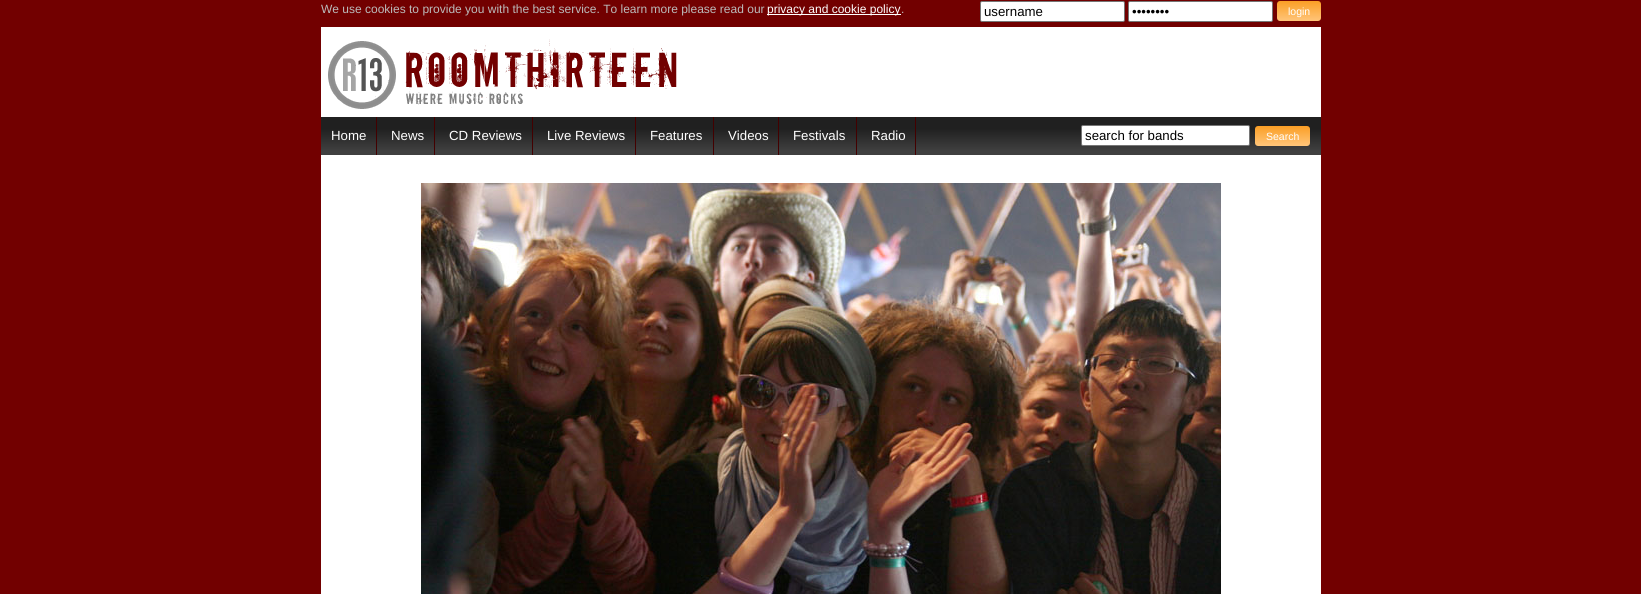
#include <cairo.h>
#include <math.h>
#include <stddef.h>


static void rgb(cairo_t *cr, int r, int g, int b)
{
	cairo_set_source_rgb(cr, r / 255.0, g / 255.0, b / 255.0);
}

static void face(cairo_t *cr, const char *family, double size, int italic, int bold)
{
	cairo_select_font_face(cr, family, italic ? CAIRO_FONT_SLANT_ITALIC : CAIRO_FONT_SLANT_NORMAL,
		bold ? CAIRO_FONT_WEIGHT_BOLD : CAIRO_FONT_WEIGHT_NORMAL);
	cairo_set_font_size(cr, size);
}

static void label(cairo_t *cr, double x, double y, const char *s)
{
	cairo_move_to(cr, x, y);
	cairo_show_text(cr, s);
}

static void rect(cairo_t *cr, double x, double y, double w, double h)
{
	cairo_rectangle(cr, x, y, w, h);
	cairo_fill(cr);
}

static void rrect(cairo_t *cr, double x, double y, double w, double h, double r)
{
	cairo_new_sub_path(cr);
	cairo_arc(cr, x + w - r, y + h - r, r, 0, M_PI / 2);
	cairo_arc(cr, x + r, y + h - r, r, M_PI / 2, M_PI);
	cairo_arc(cr, x + r, y + r, r, M_PI, 1.5 * M_PI);
	cairo_arc(cr, x + w - r, y + r, r, 1.5 * M_PI, 2 * M_PI);
	cairo_close_path(cr);
}

static void image(cairo_t *cr, const char *path, double x, double y, double w, double h)
{
	cairo_surface_t *image = cairo_image_surface_create_from_png(path);
	cairo_save(cr);
	cairo_set_source_surface(cr, image, x, y);
	cairo_rectangle(cr, x, y, w, h);
	cairo_fill(cr);
	cairo_restore(cr);
	cairo_surface_destroy(image);
}

static void draw(cairo_t *cr) {
	cairo_pattern_t *gradient;
	rgb(cr, 114, 0, 0);
	cairo_paint(cr);
	rgb(cr, 255, 255, 255);
	rect(cr, 321, 27, 1000, 90);
	face(cr, "Liberation Sans", 12, 0, 0);
	rgb(cr, 187, 187, 187);
	label(cr, 321, 13, "We use cookies to provide you with the best service. To learn more please read our");
	rgb(cr, 255, 255, 255);
	rect(cr, 767, 14, 134, 1);
	label(cr, 767, 13, "privacy and cookie policy");
	rgb(cr, 187, 187, 187);
	label(cr, 901, 13, ".");
	rgb(cr, 255, 255, 255);
	rrect(cr, 980.5, 1.5, 144, 20, 1.5);
	cairo_fill_preserve(cr);
	rgb(cr, 118, 118, 118);
	cairo_set_line_width(cr, 1);
	cairo_stroke(cr);
	face(cr, "Liberation Sans", 13.25, 0, 0);
	rgb(cr, 0, 0, 0);
	label(cr, 984, 16, "username");
	rgb(cr, 255, 255, 255);
	rrect(cr, 1128.5, 1.5, 144, 20, 1.5);
	cairo_fill_preserve(cr);
	rgb(cr, 118, 118, 118);
	cairo_stroke(cr);
	rgb(cr, 0, 0, 0);
	label(cr, 1132, 16, "••••••••");
	gradient = cairo_pattern_create_linear(1277, 21, 1277, 1);
	cairo_pattern_add_color_stop_rgba(gradient, 0, 1, 0.769, 0.467, 1);
	cairo_pattern_add_color_stop_rgba(gradient, 0.03, 1, 0.769, 0.467, 1);
	cairo_pattern_add_color_stop_rgba(gradient, 1, 0.984, 0.62, 0.145, 1);
	cairo_set_source(cr, gradient);
	cairo_pattern_destroy(gradient);
	rrect(cr, 1277, 1, 44, 20, 3);
	cairo_fill(cr);
	face(cr, "Liberation Sans", 10.5, 0, 0);
	rgb(cr, 255, 255, 255);
	label(cr, 1288, 15, "login");
	image(cr, "image0.png", 328, 39, 349, 70);
	gradient = cairo_pattern_create_linear(821, 117, 821, 155);
	cairo_pattern_add_color_stop_rgba(gradient, 0.3, 0.125, 0.125, 0.125, 1);
	cairo_pattern_add_color_stop_rgba(gradient, 0.9, 0.251, 0.251, 0.251, 1);
	cairo_set_source(cr, gradient);
	cairo_pattern_destroy(gradient);
	rect(cr, 321, 117, 1000, 38);
	rgb(cr, 68, 0, 0);
	rect(cr, 376, 117, 1, 38);
	face(cr, "Liberation Sans", 13.25, 0, 0);
	rgb(cr, 255, 255, 255);
	label(cr, 331, 140, "Home");
	rgb(cr, 68, 0, 0);
	rect(cr, 434, 117, 1, 38);
	rgb(cr, 255, 255, 255);
	label(cr, 391, 140, "News");
	rgb(cr, 68, 0, 0);
	rect(cr, 532, 117, 1, 38);
	rgb(cr, 255, 255, 255);
	label(cr, 449, 140, "CD Reviews");
	rgb(cr, 68, 0, 0);
	rect(cr, 635, 117, 1, 38);
	rgb(cr, 255, 255, 255);
	label(cr, 547, 140, "Live Reviews");
	rgb(cr, 68, 0, 0);
	rect(cr, 713, 117, 1, 38);
	rgb(cr, 255, 255, 255);
	label(cr, 650, 140, "Features");
	rgb(cr, 68, 0, 0);
	rect(cr, 778, 117, 1, 38);
	rgb(cr, 255, 255, 255);
	label(cr, 728, 140, "Videos");
	rgb(cr, 68, 0, 0);
	rect(cr, 856, 117, 1, 38);
	rgb(cr, 255, 255, 255);
	label(cr, 793, 140, "Festivals");
	rgb(cr, 68, 0, 0);
	rect(cr, 915, 117, 1, 38);
	rgb(cr, 255, 255, 255);
	label(cr, 871, 140, "Radio");
	rrect(cr, 1081.5, 125.5, 168, 20, 1.5);
	cairo_fill_preserve(cr);
	rgb(cr, 118, 118, 118);
	cairo_stroke(cr);
	rgb(cr, 0, 0, 0);
	label(cr, 1085, 140, "search for bands");
	gradient = cairo_pattern_create_linear(1255, 146, 1255, 126);
	cairo_pattern_add_color_stop_rgba(gradient, 0, 1, 0.769, 0.467, 1);
	cairo_pattern_add_color_stop_rgba(gradient, 0.03, 1, 0.769, 0.467, 1);
	cairo_pattern_add_color_stop_rgba(gradient, 1, 0.984, 0.62, 0.145, 1);
	cairo_set_source(cr, gradient);
	cairo_pattern_destroy(gradient);
	rrect(cr, 1255, 126, 55, 20, 3);
	cairo_fill(cr);
	face(cr, "Liberation Sans", 10.5, 0, 0);
	rgb(cr, 255, 255, 255);
	label(cr, 1266, 140, "Search");
	rect(cr, 321, 155, 1000, 439);
	image(cr, "image1.png", 421, 183, 800, 411);
}

int main(void) {
	cairo_surface_t *surface = cairo_image_surface_create(CAIRO_FORMAT_RGB24, 1641, 594);
	cairo_t *cr = cairo_create(surface);
	cairo_font_options_t *options = cairo_font_options_create();
	cairo_font_options_set_hint_metrics(options, CAIRO_HINT_METRICS_OFF);
	cairo_font_options_set_hint_style(options, CAIRO_HINT_STYLE_NONE);
	cairo_set_font_options(cr, options);
	cairo_set_miter_limit(cr, 4);
	draw(cr);
	cairo_surface_write_to_png(surface, "render.png");
	cairo_font_options_destroy(options);
	cairo_destroy(cr);
	cairo_surface_destroy(surface);
	return 0;
}
